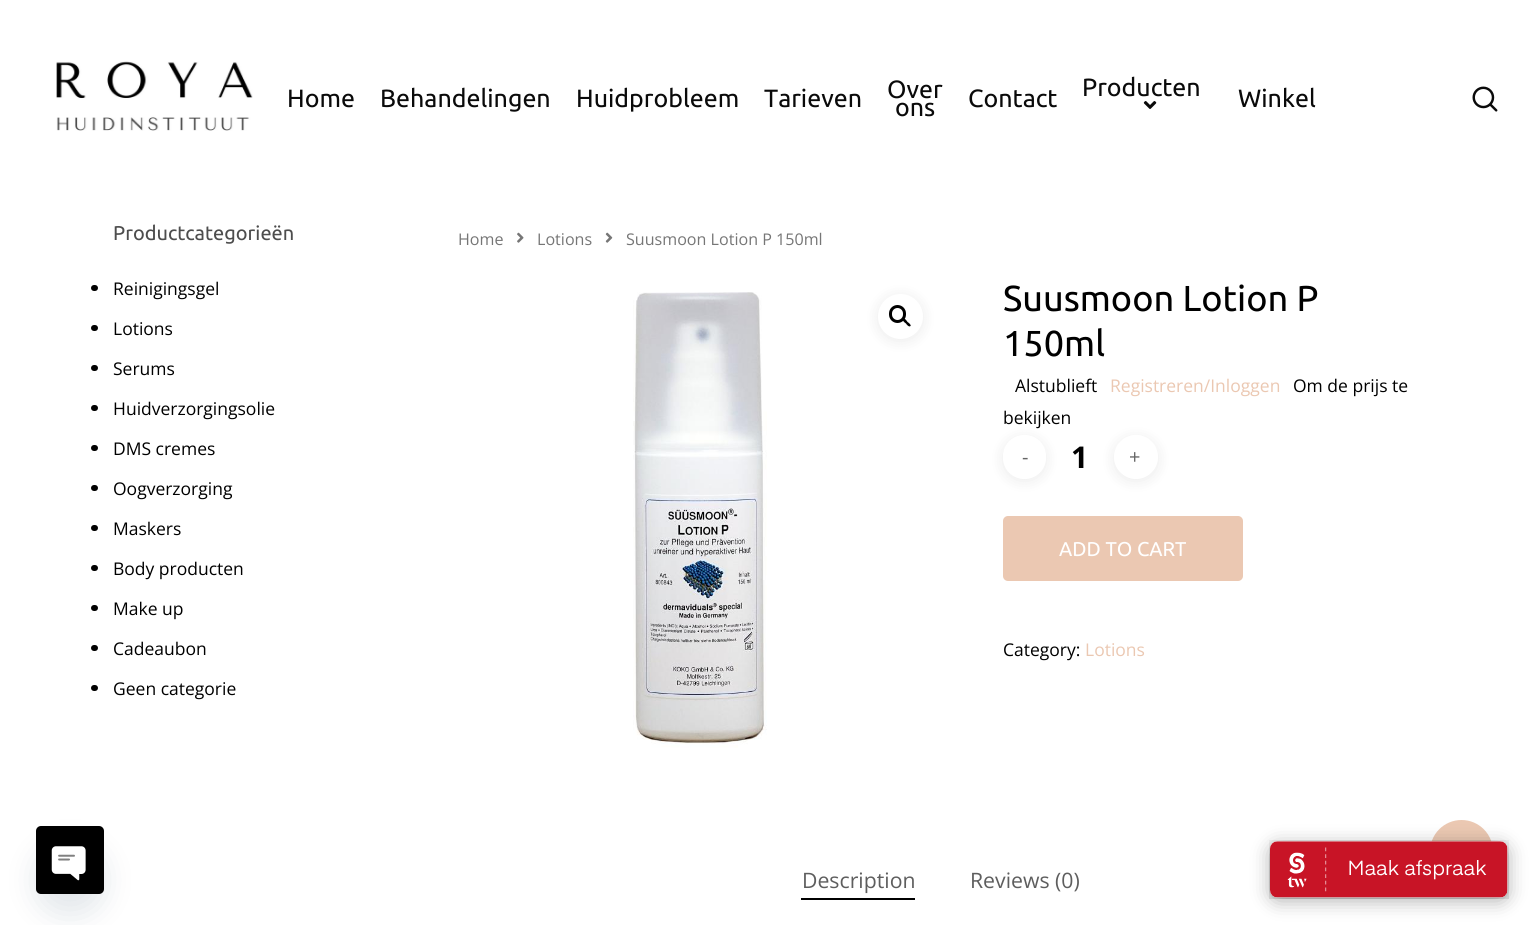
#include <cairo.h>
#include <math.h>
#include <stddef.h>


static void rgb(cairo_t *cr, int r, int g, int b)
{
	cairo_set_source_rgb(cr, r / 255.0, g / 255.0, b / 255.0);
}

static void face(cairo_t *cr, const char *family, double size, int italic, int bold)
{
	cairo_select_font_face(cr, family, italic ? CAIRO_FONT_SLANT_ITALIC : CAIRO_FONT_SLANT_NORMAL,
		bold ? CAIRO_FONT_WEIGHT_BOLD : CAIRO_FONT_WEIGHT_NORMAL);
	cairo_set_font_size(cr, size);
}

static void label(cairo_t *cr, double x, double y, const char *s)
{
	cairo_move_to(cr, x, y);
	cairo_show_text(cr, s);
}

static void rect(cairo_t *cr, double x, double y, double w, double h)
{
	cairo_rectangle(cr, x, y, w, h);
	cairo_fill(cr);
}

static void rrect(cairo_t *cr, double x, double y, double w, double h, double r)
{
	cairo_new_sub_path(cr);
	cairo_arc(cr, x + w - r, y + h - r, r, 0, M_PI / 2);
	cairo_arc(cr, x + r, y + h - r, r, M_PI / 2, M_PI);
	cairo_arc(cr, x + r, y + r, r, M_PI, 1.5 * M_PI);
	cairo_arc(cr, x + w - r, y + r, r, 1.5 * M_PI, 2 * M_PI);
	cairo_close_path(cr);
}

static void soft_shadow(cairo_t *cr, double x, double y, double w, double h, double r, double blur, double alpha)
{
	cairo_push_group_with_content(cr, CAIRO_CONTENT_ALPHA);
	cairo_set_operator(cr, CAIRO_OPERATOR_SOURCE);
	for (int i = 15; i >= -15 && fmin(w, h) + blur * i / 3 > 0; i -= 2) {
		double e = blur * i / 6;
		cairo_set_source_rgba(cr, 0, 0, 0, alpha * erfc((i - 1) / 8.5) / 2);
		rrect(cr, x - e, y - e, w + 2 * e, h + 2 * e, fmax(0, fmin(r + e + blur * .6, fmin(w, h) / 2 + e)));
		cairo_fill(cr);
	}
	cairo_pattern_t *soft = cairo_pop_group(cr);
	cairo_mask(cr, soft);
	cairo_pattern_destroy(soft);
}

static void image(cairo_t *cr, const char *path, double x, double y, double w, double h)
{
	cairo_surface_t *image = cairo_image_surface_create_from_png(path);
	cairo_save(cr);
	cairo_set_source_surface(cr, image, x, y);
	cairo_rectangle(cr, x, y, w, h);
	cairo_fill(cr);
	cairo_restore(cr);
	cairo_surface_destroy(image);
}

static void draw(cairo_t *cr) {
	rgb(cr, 255, 255, 255);
	cairo_paint(cr);
	rgb(cr, 73, 104, 126);
	soft_shadow(cr, 36, 846, 68, 68, 34, 15, 0.16);
	rgb(cr, 0, 0, 0);
	rrect(cr, 36, 826, 68, 68, 5);
	cairo_fill(cr);
	image(cr, "image0.png", 51, 846, 35, 35);
	image(cr, "image1.png", 56, 61, 197, 70);
	face(cr, "Ubuntu", 25, 0, 0);
	rgb(cr, 10, 10, 10);
	label(cr, 287, 107, "Home");
	label(cr, 380, 107, "Behandelingen");
	label(cr, 576, 107, "Huidprobleem");
	label(cr, 764, 107, "Tarieven");
	label(cr, 887, 98, "Over");
	label(cr, 895, 116, "ons");
	label(cr, 968, 107, "Contact");
	label(cr, 1082, 96, "Producten");
	image(cr, "image2.png", 1143, 101, 14, 8);
	label(cr, 1238, 107, "Winkel");
	image(cr, "image3.png", 1472, 86, 26, 26);
	face(cr, "Ubuntu", 20, 0, 0);
	rgb(cr, 77, 77, 77);
	label(cr, 113, 240, "Productcategorieën");
	rgb(cr, 0, 0, 0);
	rrect(cr, 91, 285, 7, 6, 3);
	cairo_fill(cr);
	face(cr, "Open Sans", 17.5, 0, 0);
	label(cr, 113, 295, "Reinigingsgel");
	rrect(cr, 91, 325, 7, 6, 3);
	cairo_fill(cr);
	label(cr, 113, 335, "Lotions");
	rrect(cr, 91, 365, 7, 6, 3);
	cairo_fill(cr);
	label(cr, 113, 375, "Serums");
	rrect(cr, 91, 405, 7, 6, 3);
	cairo_fill(cr);
	label(cr, 113, 415, "Huidverzorgingsolie");
	rrect(cr, 91, 445, 7, 6, 3);
	cairo_fill(cr);
	label(cr, 113, 455, "DMS cremes");
	rrect(cr, 91, 485, 7, 6, 3);
	cairo_fill(cr);
	label(cr, 113, 495, "Oogverzorging");
	rrect(cr, 91, 525, 7, 6, 3);
	cairo_fill(cr);
	label(cr, 113, 535, "Maskers");
	rrect(cr, 91, 565, 7, 6, 3);
	cairo_fill(cr);
	label(cr, 113, 575, "Body producten");
	rrect(cr, 91, 605, 7, 6, 3);
	cairo_fill(cr);
	label(cr, 113, 615, "Make up");
	rrect(cr, 91, 645, 7, 6, 3);
	cairo_fill(cr);
	label(cr, 113, 655, "Cadeaubon");
	rrect(cr, 91, 685, 7, 6, 3);
	cairo_fill(cr);
	label(cr, 113, 695, "Geen categorie");
	face(cr, "Open Sans", 16.1, 0, 0);
	rgb(cr, 118, 118, 118);
	label(cr, 458, 245, "Home");
	image(cr, "image4.png", 517, 232, 7, 11);
	label(cr, 537, 245, "Lotions");
	image(cr, "image5.png", 605, 232, 8, 11);
	label(cr, 626, 245, "Suusmoon Lotion P 150ml");
	image(cr, "image6.png", 633, 292, 134, 456);
	rgb(cr, 0, 0, 0);
	soft_shadow(cr, 878, 296, 45, 45, 22.5, 7.5, 0.08);
	rgb(cr, 255, 255, 255);
	cairo_arc(cr, 900.5, 316.5, 22.5, 0, 2 * M_PI);
	cairo_fill(cr);
	rrect(cr, 890.5, 306.5, 14, 15, 7);
	rgb(cr, 0, 0, 0);
	cairo_set_line_width(cr, 3);
	cairo_stroke(cr);
	cairo_new_path(cr);
	cairo_move_to(cr, 903, 319);
	cairo_curve_to(cr, 904.5, 317.5, 907, 321, 907.5, 322);
	cairo_curve_to(cr, 908.5, 322.5, 911.5, 325, 910.5, 326);
	cairo_curve_to(cr, 909, 327.5, 906.5, 324.5, 906, 323.5);
	cairo_curve_to(cr, 905, 323, 902, 320.5, 903, 319);
	cairo_close_path(cr);
	cairo_fill(cr);
	face(cr, "Ubuntu", 36.1, 0, 0);
	label(cr, 1003, 311, "Suusmoon Lotion P");
	label(cr, 1003, 356, "150ml");
	face(cr, "Open Sans", 17.5, 0, 0);
	label(cr, 1015, 392, "Alstublieft");
	rgb(cr, 235, 200, 178);
	label(cr, 1110, 392, "Registreren/Inloggen");
	rgb(cr, 0, 0, 0);
	label(cr, 1293, 392, "Om de prijs te");
	label(cr, 1003, 424, "bekijken");
	cairo_save(cr);
	cairo_set_fill_rule(cr, CAIRO_FILL_RULE_EVEN_ODD);
	cairo_new_path(cr);
	cairo_move_to(cr, 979, 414);
	cairo_line_to(cr, 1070, 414);
	cairo_line_to(cr, 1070, 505);
	cairo_line_to(cr, 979, 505);
	cairo_close_path(cr);
	cairo_move_to(cr, 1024.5, 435);
	cairo_curve_to(cr, 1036.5, 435, 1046, 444.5, 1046, 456.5);
	cairo_line_to(cr, 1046, 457.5);
	cairo_curve_to(cr, 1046, 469.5, 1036.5, 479, 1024.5, 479);
	cairo_curve_to(cr, 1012.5, 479, 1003, 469.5, 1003, 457.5);
	cairo_line_to(cr, 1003, 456.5);
	cairo_curve_to(cr, 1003, 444.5, 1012.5, 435, 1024.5, 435);
	cairo_close_path(cr);
	cairo_clip(cr);
	rgb(cr, 0, 0, 0);
	soft_shadow(cr, 1003, 438, 43, 43, 21.5, 7.5, 0.08);
	cairo_restore(cr);
	face(cr, "Open Sans", 20, 0, 0);
	rgb(cr, 102, 102, 102);
	label(cr, 1022, 464, "-");
	face(cr, "Open Sans", 30, 0, 1);
	rgb(cr, 0, 0, 0);
	label(cr, 1071, 468, "1");
	cairo_save(cr);
	cairo_set_fill_rule(cr, CAIRO_FILL_RULE_EVEN_ODD);
	cairo_new_path(cr);
	cairo_move_to(cr, 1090, 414);
	cairo_line_to(cr, 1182, 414);
	cairo_line_to(cr, 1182, 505);
	cairo_line_to(cr, 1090, 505);
	cairo_close_path(cr);
	cairo_move_to(cr, 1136, 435);
	cairo_curve_to(cr, 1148, 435, 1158, 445, 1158, 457);
	cairo_curve_to(cr, 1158, 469, 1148, 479, 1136, 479);
	cairo_curve_to(cr, 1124, 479, 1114, 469, 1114, 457);
	cairo_curve_to(cr, 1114, 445, 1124, 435, 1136, 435);
	cairo_close_path(cr);
	cairo_clip(cr);
	rgb(cr, 0, 0, 0);
	soft_shadow(cr, 1114, 438, 44, 43, 21.5, 7.5, 0.08);
	cairo_restore(cr);
	face(cr, "Open Sans", 20, 0, 0);
	rgb(cr, 102, 102, 102);
	label(cr, 1129, 464, "+");
	rgb(cr, 235, 200, 178);
	rrect(cr, 1003, 516, 240, 65, 5);
	cairo_fill(cr);
	face(cr, "Ubuntu", 20, 0, 0);
	rgb(cr, 255, 255, 255);
	label(cr, 1059, 556, "ADD TO CART");
	face(cr, "Open Sans", 17.5, 0, 0);
	rgb(cr, 0, 0, 0);
	label(cr, 1003, 656, "Category:");
	rgb(cr, 235, 200, 178);
	label(cr, 1085, 656, "Lotions");
	rgb(cr, 0, 0, 0);
	rect(cr, 801, 898, 114, 2);
	face(cr, "Open Sans", 21.25, 0, 0);
	rgb(cr, 94, 94, 94);
	label(cr, 802, 888, "Description");
	label(cr, 970, 888, "Reviews (0)");
	rgb(cr, 235, 200, 178);
	cairo_new_path(cr);
	cairo_arc(cr, 1461.5, 851.5, 31.5, 0, 2 * M_PI);
	cairo_fill(cr);
	rgb(cr, 0, 0, 0);
	soft_shadow(cr, 1270, 845, 238, 56, 8, 9.5, 0.3);
	image(cr, "image7.png", 1269, 840, 240, 59);
}

int main(void) {
	cairo_surface_t *surface = cairo_image_surface_create(CAIRO_FORMAT_RGB24, 1534, 925);
	cairo_t *cr = cairo_create(surface);
	cairo_font_options_t *options = cairo_font_options_create();
	cairo_font_options_set_hint_metrics(options, CAIRO_HINT_METRICS_OFF);
	cairo_font_options_set_hint_style(options, CAIRO_HINT_STYLE_NONE);
	cairo_set_font_options(cr, options);
	cairo_set_miter_limit(cr, 4);
	draw(cr);
	cairo_surface_write_to_png(surface, "render.png");
	cairo_font_options_destroy(options);
	cairo_destroy(cr);
	cairo_surface_destroy(surface);
	return 0;
}
